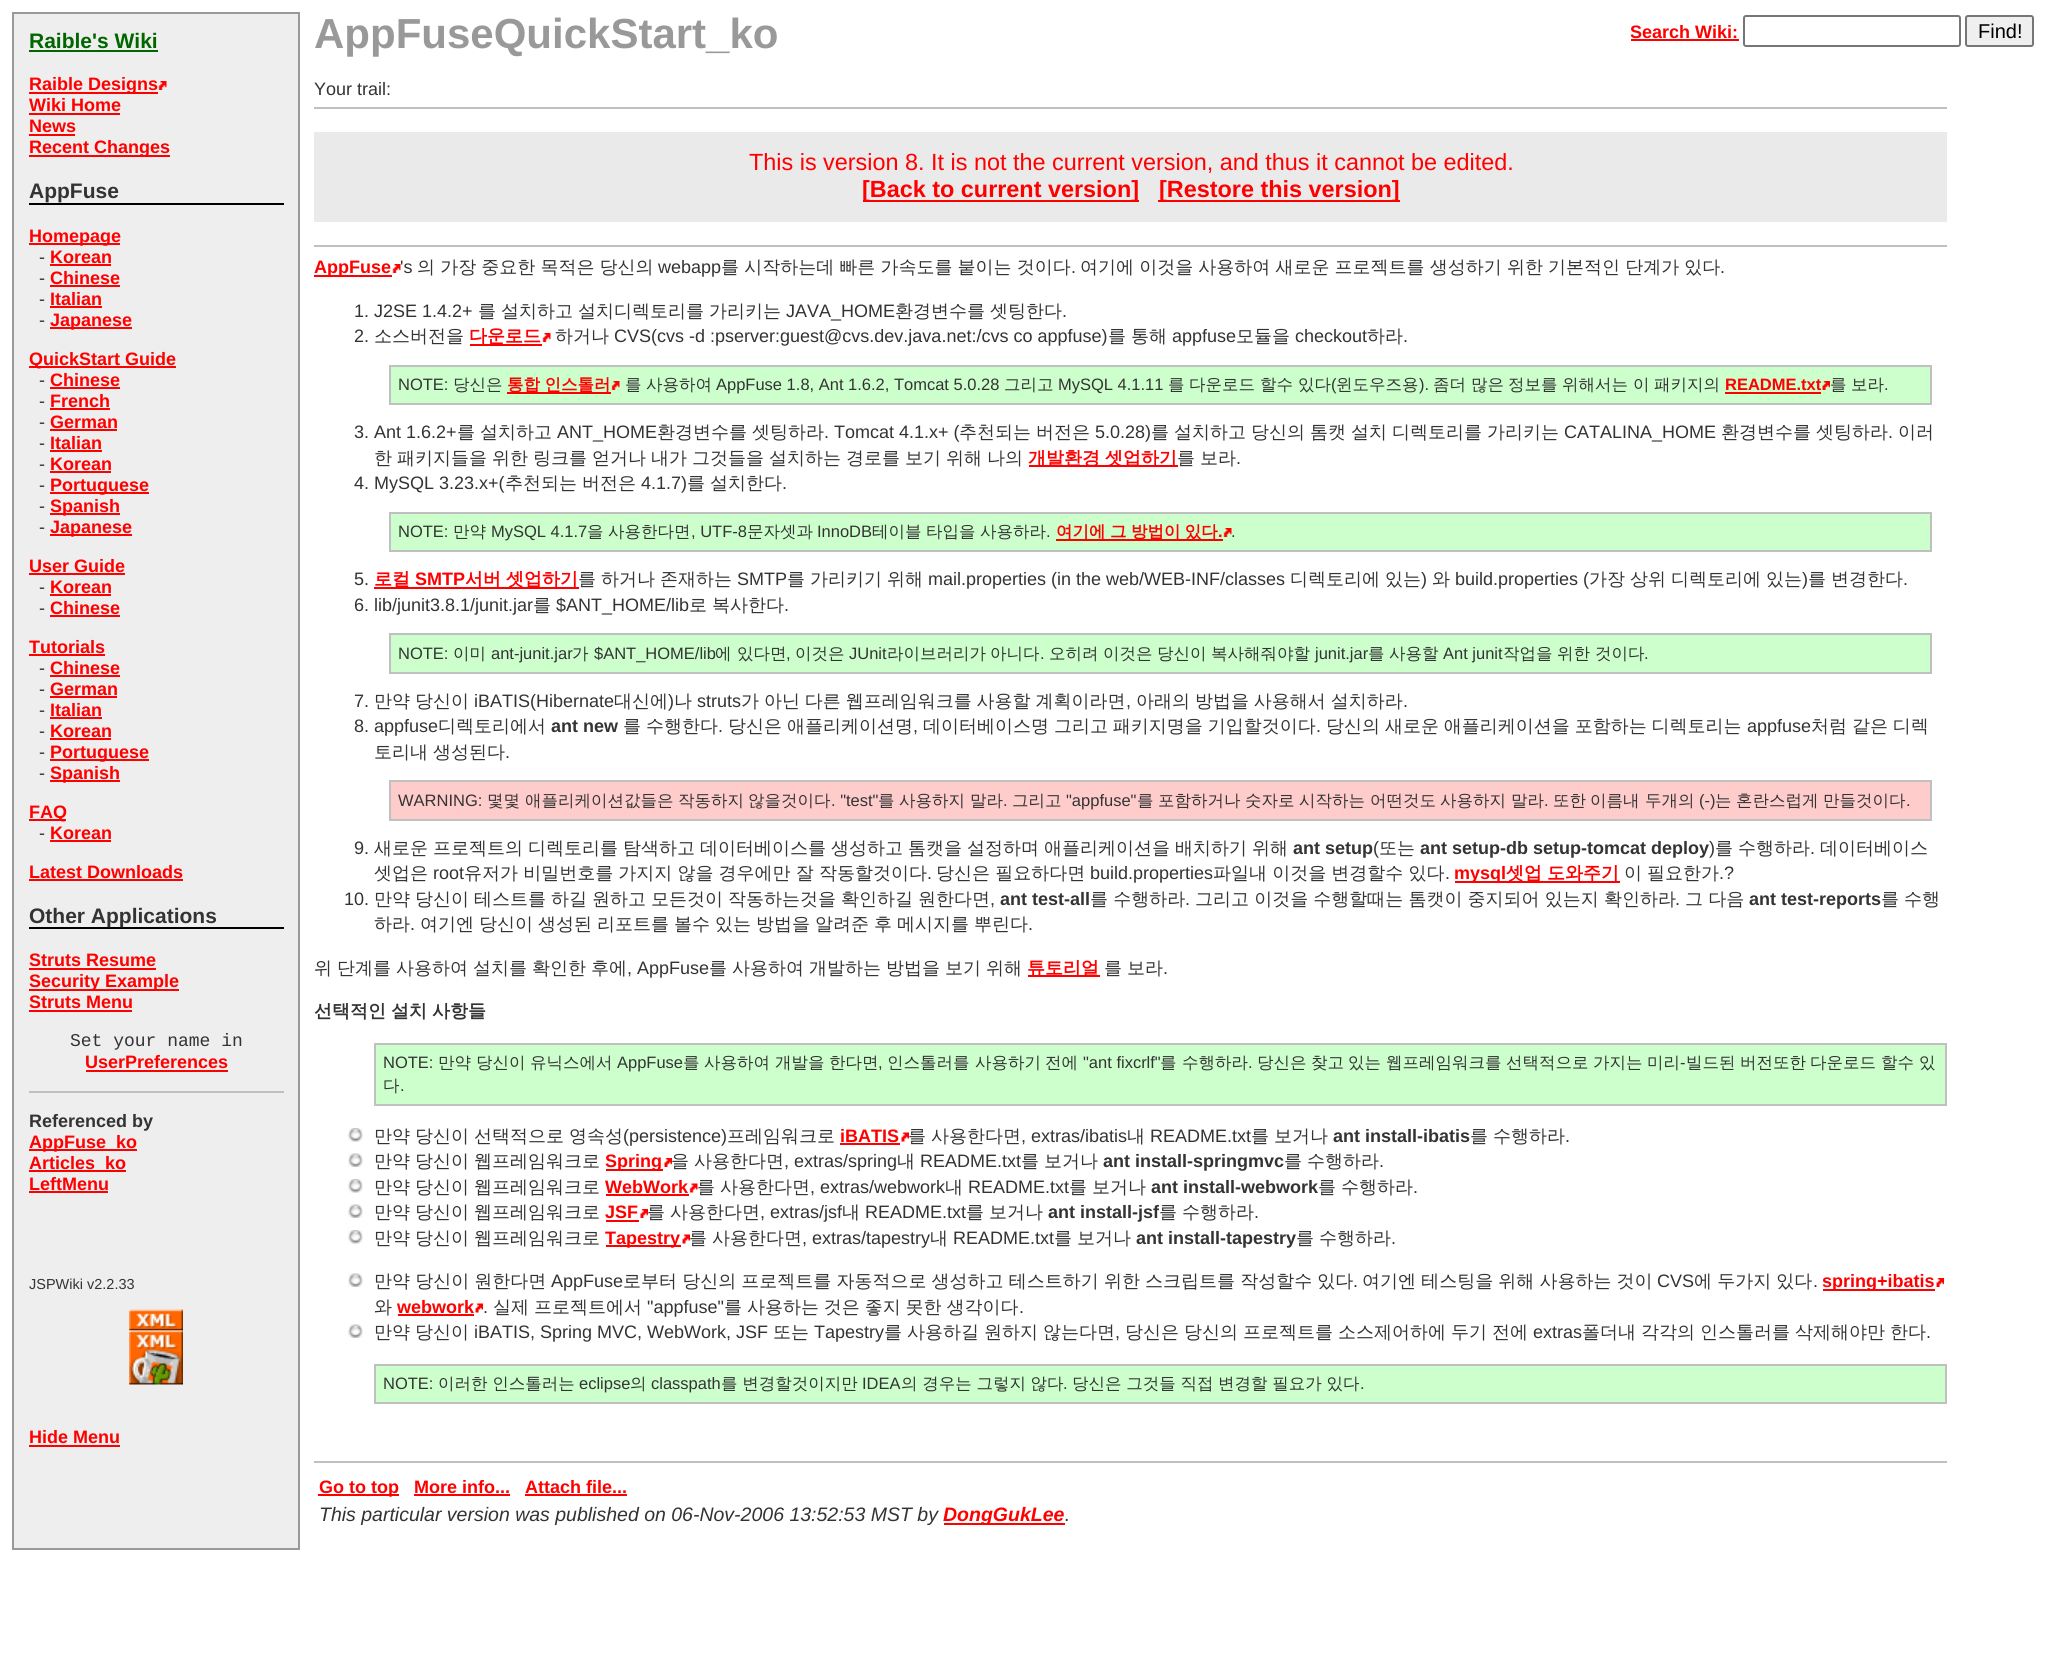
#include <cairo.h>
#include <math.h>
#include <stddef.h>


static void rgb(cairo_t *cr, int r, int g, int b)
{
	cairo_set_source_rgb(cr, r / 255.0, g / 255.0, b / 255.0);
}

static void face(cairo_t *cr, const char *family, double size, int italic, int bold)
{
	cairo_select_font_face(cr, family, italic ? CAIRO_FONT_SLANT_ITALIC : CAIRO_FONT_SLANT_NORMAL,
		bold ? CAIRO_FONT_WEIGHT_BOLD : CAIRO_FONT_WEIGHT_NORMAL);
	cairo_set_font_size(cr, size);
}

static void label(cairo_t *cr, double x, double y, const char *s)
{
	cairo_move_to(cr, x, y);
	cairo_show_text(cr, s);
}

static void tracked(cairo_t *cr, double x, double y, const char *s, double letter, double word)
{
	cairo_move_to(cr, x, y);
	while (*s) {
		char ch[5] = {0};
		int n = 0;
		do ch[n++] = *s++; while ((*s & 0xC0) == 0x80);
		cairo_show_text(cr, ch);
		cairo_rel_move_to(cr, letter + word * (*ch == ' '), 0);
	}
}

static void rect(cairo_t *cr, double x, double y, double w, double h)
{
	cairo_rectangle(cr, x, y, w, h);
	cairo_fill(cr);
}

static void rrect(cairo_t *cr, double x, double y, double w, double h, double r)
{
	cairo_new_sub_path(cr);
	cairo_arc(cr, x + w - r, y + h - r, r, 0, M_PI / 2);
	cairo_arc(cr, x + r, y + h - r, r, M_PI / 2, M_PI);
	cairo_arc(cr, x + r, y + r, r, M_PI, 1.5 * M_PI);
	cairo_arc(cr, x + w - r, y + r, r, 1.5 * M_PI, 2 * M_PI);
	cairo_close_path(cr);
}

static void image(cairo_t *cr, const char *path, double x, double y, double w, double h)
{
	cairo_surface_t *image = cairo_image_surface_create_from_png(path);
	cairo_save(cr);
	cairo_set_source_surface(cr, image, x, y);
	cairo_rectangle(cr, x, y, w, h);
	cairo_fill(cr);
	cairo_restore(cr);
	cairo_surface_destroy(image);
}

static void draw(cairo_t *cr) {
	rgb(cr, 255, 255, 255);
	cairo_paint(cr);
	rgb(cr, 238, 238, 238);
	cairo_rectangle(cr, 13, 13, 286, 1536);
	cairo_fill_preserve(cr);
	rgb(cr, 153, 153, 153);
	cairo_stroke(cr);
	face(cr, "Liberation Sans", 21, 0, 1);
	rgb(cr, 0, 102, 0);
	label(cr, 29, 48, "Raible's Wiki");
	rect(cr, 29, 50, 129, 2);
	rgb(cr, 255, 0, 0);
	rect(cr, 29, 92, 129, 2);
	face(cr, "Liberation Sans", 18, 0, 1);
	label(cr, 29, 90, "Raible Designs");
	image(cr, "image0.png", 158, 81, 9, 9);
	label(cr, 29, 111, "Wiki Home");
	rect(cr, 29, 113, 91, 2);
	label(cr, 29, 132, "News");
	rect(cr, 29, 134, 46, 2);
	rect(cr, 29, 155, 141, 2);
	label(cr, 29, 153, "Recent Changes");
	rgb(cr, 0, 0, 0);
	rect(cr, 29, 203, 255, 2);
	face(cr, "Liberation Sans", 21, 0, 1);
	rgb(cr, 51, 51, 51);
	label(cr, 29, 198, "AppFuse");
	rgb(cr, 255, 0, 0);
	rect(cr, 29, 243, 91, 2);
	face(cr, "Liberation Sans", 18, 0, 1);
	label(cr, 29, 242, "Homepage");
	face(cr, "Liberation Sans", 18, 0, 0);
	rgb(cr, 51, 51, 51);
	label(cr, 39, 263, "-");
	face(cr, "Liberation Sans", 18, 0, 1);
	rgb(cr, 255, 0, 0);
	label(cr, 50, 263, "Korean");
	rect(cr, 50, 264, 61, 2);
	face(cr, "Liberation Sans", 18, 0, 0);
	rgb(cr, 51, 51, 51);
	label(cr, 39, 284, "-");
	face(cr, "Liberation Sans", 18, 0, 1);
	rgb(cr, 255, 0, 0);
	label(cr, 50, 284, "Chinese");
	rect(cr, 50, 285, 70, 2);
	face(cr, "Liberation Sans", 18, 0, 0);
	rgb(cr, 51, 51, 51);
	label(cr, 39, 305, "-");
	face(cr, "Liberation Sans", 18, 0, 1);
	rgb(cr, 255, 0, 0);
	label(cr, 50, 305, "Italian");
	rect(cr, 50, 306, 52, 2);
	face(cr, "Liberation Sans", 18, 0, 0);
	rgb(cr, 51, 51, 51);
	label(cr, 39, 326, "-");
	rgb(cr, 255, 0, 0);
	rect(cr, 50, 327, 82, 2);
	face(cr, "Liberation Sans", 18, 0, 1);
	label(cr, 50, 326, "Japanese");
	rect(cr, 29, 366, 147, 2);
	label(cr, 29, 365, "QuickStart Guide");
	face(cr, "Liberation Sans", 18, 0, 0);
	rgb(cr, 51, 51, 51);
	label(cr, 39, 386, "-");
	face(cr, "Liberation Sans", 18, 0, 1);
	rgb(cr, 255, 0, 0);
	label(cr, 50, 386, "Chinese");
	rect(cr, 50, 387, 70, 2);
	face(cr, "Liberation Sans", 18, 0, 0);
	rgb(cr, 51, 51, 51);
	label(cr, 39, 407, "-");
	face(cr, "Liberation Sans", 18, 0, 1);
	rgb(cr, 255, 0, 0);
	label(cr, 50, 407, "French");
	rect(cr, 50, 408, 60, 2);
	face(cr, "Liberation Sans", 18, 0, 0);
	rgb(cr, 51, 51, 51);
	label(cr, 39, 428, "-");
	face(cr, "Liberation Sans", 18, 0, 1);
	rgb(cr, 255, 0, 0);
	label(cr, 50, 428, "German");
	rect(cr, 50, 429, 67, 2);
	face(cr, "Liberation Sans", 18, 0, 0);
	rgb(cr, 51, 51, 51);
	label(cr, 39, 449, "-");
	face(cr, "Liberation Sans", 18, 0, 1);
	rgb(cr, 255, 0, 0);
	label(cr, 50, 449, "Italian");
	rect(cr, 50, 450, 52, 2);
	face(cr, "Liberation Sans", 18, 0, 0);
	rgb(cr, 51, 51, 51);
	label(cr, 39, 470, "-");
	face(cr, "Liberation Sans", 18, 0, 1);
	rgb(cr, 255, 0, 0);
	label(cr, 50, 470, "Korean");
	rect(cr, 50, 471, 61, 2);
	face(cr, "Liberation Sans", 18, 0, 0);
	rgb(cr, 51, 51, 51);
	label(cr, 39, 491, "-");
	rgb(cr, 255, 0, 0);
	rect(cr, 50, 492, 99, 2);
	face(cr, "Liberation Sans", 18, 0, 1);
	label(cr, 50, 491, "Portuguese");
	face(cr, "Liberation Sans", 18, 0, 0);
	rgb(cr, 51, 51, 51);
	label(cr, 39, 512, "-");
	rgb(cr, 255, 0, 0);
	rect(cr, 50, 513, 70, 2);
	face(cr, "Liberation Sans", 18, 0, 1);
	label(cr, 50, 512, "Spanish");
	face(cr, "Liberation Sans", 18, 0, 0);
	rgb(cr, 51, 51, 51);
	label(cr, 39, 533, "-");
	rgb(cr, 255, 0, 0);
	rect(cr, 50, 534, 82, 2);
	face(cr, "Liberation Sans", 18, 0, 1);
	label(cr, 50, 533, "Japanese");
	label(cr, 29, 572, "User Guide");
	rect(cr, 29, 573, 96, 2);
	face(cr, "Liberation Sans", 18, 0, 0);
	rgb(cr, 51, 51, 51);
	label(cr, 39, 593, "-");
	face(cr, "Liberation Sans", 18, 0, 1);
	rgb(cr, 255, 0, 0);
	label(cr, 50, 593, "Korean");
	rect(cr, 50, 594, 61, 2);
	face(cr, "Liberation Sans", 18, 0, 0);
	rgb(cr, 51, 51, 51);
	label(cr, 39, 614, "-");
	face(cr, "Liberation Sans", 18, 0, 1);
	rgb(cr, 255, 0, 0);
	label(cr, 50, 614, "Chinese");
	rect(cr, 50, 615, 70, 2);
	label(cr, 29, 653, "Tutorials");
	rect(cr, 29, 654, 76, 2);
	face(cr, "Liberation Sans", 18, 0, 0);
	rgb(cr, 51, 51, 51);
	label(cr, 39, 674, "-");
	face(cr, "Liberation Sans", 18, 0, 1);
	rgb(cr, 255, 0, 0);
	label(cr, 50, 674, "Chinese");
	rect(cr, 50, 675, 70, 2);
	face(cr, "Liberation Sans", 18, 0, 0);
	rgb(cr, 51, 51, 51);
	label(cr, 39, 695, "-");
	face(cr, "Liberation Sans", 18, 0, 1);
	rgb(cr, 255, 0, 0);
	label(cr, 50, 695, "German");
	rect(cr, 50, 696, 67, 2);
	face(cr, "Liberation Sans", 18, 0, 0);
	rgb(cr, 51, 51, 51);
	label(cr, 39, 716, "-");
	face(cr, "Liberation Sans", 18, 0, 1);
	rgb(cr, 255, 0, 0);
	label(cr, 50, 716, "Italian");
	rect(cr, 50, 717, 52, 2);
	face(cr, "Liberation Sans", 18, 0, 0);
	rgb(cr, 51, 51, 51);
	label(cr, 39, 737, "-");
	face(cr, "Liberation Sans", 18, 0, 1);
	rgb(cr, 255, 0, 0);
	label(cr, 50, 737, "Korean");
	rect(cr, 50, 738, 61, 2);
	face(cr, "Liberation Sans", 18, 0, 0);
	rgb(cr, 51, 51, 51);
	label(cr, 39, 758, "-");
	rgb(cr, 255, 0, 0);
	rect(cr, 50, 759, 99, 2);
	face(cr, "Liberation Sans", 18, 0, 1);
	label(cr, 50, 758, "Portuguese");
	face(cr, "Liberation Sans", 18, 0, 0);
	rgb(cr, 51, 51, 51);
	label(cr, 39, 779, "-");
	rgb(cr, 255, 0, 0);
	rect(cr, 50, 780, 70, 2);
	face(cr, "Liberation Sans", 18, 0, 1);
	label(cr, 50, 779, "Spanish");
	rect(cr, 29, 819, 37, 2);
	label(cr, 29, 818, "FAQ");
	face(cr, "Liberation Sans", 18, 0, 0);
	rgb(cr, 51, 51, 51);
	label(cr, 39, 839, "-");
	face(cr, "Liberation Sans", 18, 0, 1);
	rgb(cr, 255, 0, 0);
	label(cr, 50, 839, "Korean");
	rect(cr, 50, 840, 61, 2);
	label(cr, 29, 878, "Latest Downloads");
	rect(cr, 29, 879, 154, 2);
	rgb(cr, 0, 0, 0);
	rect(cr, 29, 927, 255, 2);
	face(cr, "Liberation Sans", 21, 0, 1);
	rgb(cr, 51, 51, 51);
	label(cr, 29, 923, "Other Applications");
	face(cr, "Liberation Sans", 18, 0, 1);
	rgb(cr, 255, 0, 0);
	label(cr, 29, 966, "Struts Resume");
	rect(cr, 29, 968, 127, 2);
	rect(cr, 29, 989, 150, 2);
	label(cr, 29, 987, "Security Example");
	label(cr, 29, 1008, "Struts Menu");
	rect(cr, 29, 1010, 103, 2);
	face(cr, "Liberation Mono", 18, 0, 0);
	rgb(cr, 51, 51, 51);
	label(cr, 70, 1046, "Set your name in");
	face(cr, "Liberation Sans", 18, 0, 1);
	rgb(cr, 255, 0, 0);
	label(cr, 85, 1068, "UserPreferences");
	rect(cr, 86, 1070, 142, 2);
	rgb(cr, 192, 192, 192);
	rect(cr, 29, 1091, 255, 2);
	rgb(cr, 51, 51, 51);
	label(cr, 29, 1127, "Referenced by");
	rgb(cr, 255, 0, 0);
	rect(cr, 29, 1149, 108, 2);
	label(cr, 29, 1148, "AppFuse_ko");
	rect(cr, 29, 1170, 97, 2);
	label(cr, 29, 1169, "Articles_ko");
	label(cr, 29, 1190, "LeftMenu");
	rect(cr, 29, 1191, 79, 2);
	face(cr, "Liberation Sans", 14.5, 0, 0);
	rgb(cr, 51, 51, 51);
	label(cr, 29, 1289, "JSPWiki v2.2.33");
	image(cr, "image1.png", 129, 1309, 54, 22);
	image(cr, "image2.png", 129, 1330, 54, 55);
	face(cr, "Liberation Sans", 18, 0, 1);
	rgb(cr, 255, 0, 0);
	label(cr, 29, 1443, "Hide Menu");
	rect(cr, 29, 1445, 91, 2);
	face(cr, "Liberation Sans", 42, 0, 1);
	rgb(cr, 153, 153, 153);
	label(cr, 314, 48, "AppFuseQuickStart_ko");
	face(cr, "Liberation Sans", 18, 0, 1);
	rgb(cr, 255, 0, 0);
	label(cr, 1630, 38, "Search Wiki:");
	rect(cr, 1631, 39, 108, 2);
	rrect(cr, 1744, 16, 216, 30, 2);
	rgb(cr, 118, 118, 118);
	cairo_stroke(cr);
	rgb(cr, 239, 239, 239);
	rrect(cr, 1966, 16, 67, 30, 2);
	cairo_fill_preserve(cr);
	rgb(cr, 118, 118, 118);
	cairo_stroke(cr);
	face(cr, "Liberation Sans", 20, 0, 0);
	rgb(cr, 0, 0, 0);
	label(cr, 1978, 38, "Find!");
	face(cr, "Liberation Sans", 18, 0, 0);
	rgb(cr, 51, 51, 51);
	label(cr, 314, 95, "Your trail:");
	rgb(cr, 192, 192, 192);
	rect(cr, 314, 107, 1633, 2);
	rgb(cr, 234, 234, 234);
	rect(cr, 314, 132, 1633, 90);
	face(cr, "Liberation Sans", 23.4, 0, 0);
	rgb(cr, 255, 0, 0);
	label(cr, 749, 170, "This is version 8. It is not the current version, and thus it cannot be edited.");
	rect(cr, 863, 200, 276, 2);
	face(cr, "Liberation Sans", 23.4, 0, 1);
	label(cr, 862, 197, "[Back to current version]");
	rect(cr, 1158, 200, 242, 2);
	label(cr, 1159, 197, "[Restore this version]");
	rgb(cr, 192, 192, 192);
	rect(cr, 314, 245, 1633, 2);
	rgb(cr, 255, 0, 0);
	rect(cr, 314, 275, 78, 2);
	face(cr, "Liberation Sans", 18, 0, 1);
	label(cr, 314, 273, "AppFuse");
	image(cr, "image3.png", 392, 264, 9, 9);
	face(cr, "Liberation Sans", 18, 0, 0);
	rgb(cr, 51, 51, 51);
	label(cr, 400, 273, "'s");
	face(cr, "WenQuanYi Zen Hei Medium", 18, 0, 0);
	tracked(cr, 417, 273, "의 가장 중요한 목적은 당신의", 0, -0.25);
	face(cr, "Liberation Sans", 18, 0, 0);
	label(cr, 658, 273, "webapp");
	face(cr, "WenQuanYi Zen Hei Medium", 18, 0, 0);
	tracked(cr, 721, 273, "를 시작하는데 빠른 가속도를 붙이는 것이다", 0, -0.25);
	face(cr, "Liberation Sans", 18, 0, 0);
	label(cr, 1071, 273, ".");
	face(cr, "WenQuanYi Zen Hei Medium", 18, 0, 0);
	tracked(cr, 1080, 273, "여기에 이것을 사용하여 새로운 프로젝트를 생성하기 위한 기본적인 단계가 있다", 0, -0.25);
	face(cr, "Liberation Sans", 18, 0, 0);
	label(cr, 1720, 273, ".");
	label(cr, 354, 317, "1. J2SE 1.4.2+");
	face(cr, "WenQuanYi Zen Hei Medium", 18, 0, 0);
	label(cr, 478, 317, "를");
	label(cr, 501, 317, "설치하고");
	label(cr, 578, 317, "설치디렉토리를");
	label(cr, 709, 317, "가리키는");
	face(cr, "Liberation Sans", 18, 0, 0);
	label(cr, 786, 317, "JAVA_HOME");
	face(cr, "WenQuanYi Zen Hei Medium", 18, 0, 0);
	label(cr, 895, 317, "환경변수를");
	label(cr, 990, 317, "셋팅한다");
	face(cr, "Liberation Sans", 18, 0, 0);
	label(cr, 1062, 317, ".");
	label(cr, 354, 342, "2.");
	face(cr, "WenQuanYi Zen Hei Medium", 18, 0, 0);
	label(cr, 374, 342, "소스버전을");
	rgb(cr, 255, 0, 0);
	rect(cr, 470, 344, 72, 2);
	face(cr, "WenQuanYi Zen Hei", 18, 0, 1);
	label(cr, 469, 342, "다운로드");
	image(cr, "image3.png", 542, 333, 9, 9);
	face(cr, "WenQuanYi Zen Hei Medium", 18, 0, 0);
	rgb(cr, 51, 51, 51);
	label(cr, 555, 342, "하거나");
	face(cr, "Liberation Sans", 18, 0, 0);
	label(cr, 614, 342, "CVS(cvs -d :pserver:guest@cvs.dev.java.net:/cvs co appfuse)");
	face(cr, "WenQuanYi Zen Hei Medium", 18, 0, 0);
	label(cr, 1108, 342, "를");
	label(cr, 1131, 342, "통해");
	face(cr, "Liberation Sans", 18, 0, 0);
	label(cr, 1172, 342, "appfuse");
	face(cr, "WenQuanYi Zen Hei Medium", 18, 0, 0);
	label(cr, 1236, 342, "모듈을");
	face(cr, "Liberation Sans", 18, 0, 0);
	label(cr, 1295, 342, "checkout");
	face(cr, "WenQuanYi Zen Hei Medium", 18, 0, 0);
	label(cr, 1367, 342, "하라");
	face(cr, "Liberation Sans", 18, 0, 0);
	label(cr, 1403, 342, ".");
	rgb(cr, 204, 255, 204);
	cairo_rectangle(cr, 390, 366, 1541, 38);
	cairo_fill_preserve(cr);
	rgb(cr, 192, 192, 192);
	cairo_stroke(cr);
	face(cr, "Liberation Sans", 16.5, 0, 0);
	rgb(cr, 51, 51, 51);
	label(cr, 398, 390, "NOTE:");
	face(cr, "WenQuanYi Zen Hei Medium", 16.5, 0, 0);
	label(cr, 453, 390, "당신은");
	rgb(cr, 255, 0, 0);
	rect(cr, 507, 392, 104, 2);
	face(cr, "WenQuanYi Zen Hei", 16.5, 0, 1);
	tracked(cr, 507, 390, "통합 인스톨러", 0, -0.5);
	image(cr, "image4.png", 611, 381, 9, 9);
	face(cr, "WenQuanYi Zen Hei Medium", 16.5, 0, 0);
	rgb(cr, 51, 51, 51);
	label(cr, 625, 390, "를");
	label(cr, 646, 390, "사용하여");
	face(cr, "Liberation Sans", 16.5, 0, 0);
	label(cr, 716, 390, "AppFuse 1.8, Ant 1.6.2, Tomcat 5.0.28");
	face(cr, "WenQuanYi Zen Hei Medium", 16.5, 0, 0);
	label(cr, 1004, 390, "그리고");
	face(cr, "Liberation Sans", 16.5, 0, 0);
	label(cr, 1058, 390, "MySQL 4.1.11");
	face(cr, "WenQuanYi Zen Hei Medium", 16.5, 0, 0);
	label(cr, 1168, 390, "를");
	label(cr, 1189, 390, "다운로드");
	label(cr, 1260, 390, "할수");
	label(cr, 1298, 390, "있다");
	face(cr, "Liberation Sans", 16.5, 0, 0);
	label(cr, 1331, 390, "(");
	face(cr, "WenQuanYi Zen Hei Medium", 16.5, 0, 0);
	label(cr, 1336, 390, "윈도우즈용");
	face(cr, "Liberation Sans", 16.5, 0, 0);
	label(cr, 1419, 390, ").");
	face(cr, "WenQuanYi Zen Hei Medium", 16.5, 0, 0);
	label(cr, 1433, 390, "좀더");
	label(cr, 1471, 390, "많은");
	label(cr, 1508, 390, "정보를");
	label(cr, 1562, 390, "위해서는");
	label(cr, 1633, 390, "이");
	label(cr, 1654, 390, "패키지의");
	face(cr, "Liberation Sans", 16.5, 0, 1);
	rgb(cr, 255, 0, 0);
	label(cr, 1725, 390, "README.txt");
	rect(cr, 1725, 392, 96, 2);
	image(cr, "image5.png", 1822, 381, 8, 9);
	face(cr, "WenQuanYi Zen Hei Medium", 16.5, 0, 0);
	rgb(cr, 51, 51, 51);
	tracked(cr, 1830, 390, "를 보라", 0, -0.5);
	face(cr, "Liberation Sans", 16.5, 0, 0);
	label(cr, 1884, 390, ".");
	face(cr, "Liberation Sans", 18, 0, 0);
	label(cr, 354, 438, "3. Ant 1.6.2+");
	face(cr, "WenQuanYi Zen Hei Medium", 18, 0, 0);
	label(cr, 457, 438, "를");
	label(cr, 480, 438, "설치하고");
	face(cr, "Liberation Sans", 18, 0, 0);
	label(cr, 557, 438, "ANT_HOME");
	face(cr, "WenQuanYi Zen Hei Medium", 18, 0, 0);
	label(cr, 657, 438, "환경변수를");
	label(cr, 752, 438, "셋팅하라");
	face(cr, "Liberation Sans", 18, 0, 0);
	label(cr, 824, 438, ". Tomcat 4.1.x+ (");
	face(cr, "WenQuanYi Zen Hei Medium", 18, 0, 0);
	label(cr, 959, 438, "추천되는");
	label(cr, 1036, 438, "버전은");
	face(cr, "Liberation Sans", 18, 0, 0);
	label(cr, 1095, 438, "5.0.28)");
	face(cr, "WenQuanYi Zen Hei Medium", 18, 0, 0);
	label(cr, 1151, 438, "를");
	label(cr, 1174, 438, "설치하고");
	label(cr, 1251, 438, "당신의");
	label(cr, 1310, 438, "톰캣");
	label(cr, 1351, 438, "설치");
	label(cr, 1392, 438, "디렉토리를");
	label(cr, 1487, 438, "가리키는");
	face(cr, "Liberation Sans", 18, 0, 0);
	label(cr, 1564, 438, "CATALINA_HOME");
	face(cr, "WenQuanYi Zen Hei Medium", 18, 0, 0);
	label(cr, 1721, 438, "환경변수를");
	label(cr, 1816, 438, "셋팅하라");
	face(cr, "Liberation Sans", 18, 0, 0);
	label(cr, 1888, 438, ".");
	face(cr, "WenQuanYi Zen Hei Medium", 18, 0, 0);
	label(cr, 1898, 438, "이러");
	tracked(cr, 374, 464, "한 패키지들을 위한 링크를 얻거나 내가 그것들을 설치하는 경로를 보기 위해 나의", 0, -0.4);
	rgb(cr, 255, 0, 0);
	rect(cr, 1029, 465, 149, 2);
	face(cr, "WenQuanYi Zen Hei", 18, 0, 1);
	tracked(cr, 1028, 464, "개발환경 셋업하기", 0, -0.4);
	face(cr, "WenQuanYi Zen Hei Medium", 18, 0, 0);
	rgb(cr, 51, 51, 51);
	tracked(cr, 1177, 464, "를 보라", 0, -0.4);
	face(cr, "Liberation Sans", 18, 0, 0);
	label(cr, 1236, 464, ".");
	label(cr, 354, 489, "4. MySQL 3.23.x+(");
	face(cr, "WenQuanYi Zen Hei Medium", 18, 0, 0);
	label(cr, 505, 489, "추천되는");
	label(cr, 582, 489, "버전은");
	face(cr, "Liberation Sans", 18, 0, 0);
	label(cr, 641, 489, "4.1.7)");
	face(cr, "WenQuanYi Zen Hei Medium", 18, 0, 0);
	label(cr, 687, 489, "를");
	label(cr, 710, 489, "설치한다");
	face(cr, "Liberation Sans", 18, 0, 0);
	label(cr, 782, 489, ".");
	rgb(cr, 204, 255, 204);
	cairo_rectangle(cr, 390, 513, 1541, 38);
	cairo_fill_preserve(cr);
	rgb(cr, 192, 192, 192);
	cairo_stroke(cr);
	face(cr, "Liberation Sans", 16.5, 0, 0);
	rgb(cr, 51, 51, 51);
	label(cr, 398, 537, "NOTE:");
	face(cr, "WenQuanYi Zen Hei Medium", 16.5, 0, 0);
	label(cr, 453, 537, "만약");
	face(cr, "Liberation Sans", 16.5, 0, 0);
	label(cr, 491, 537, "MySQL 4.1.7");
	face(cr, "WenQuanYi Zen Hei Medium", 16.5, 0, 0);
	label(cr, 587, 537, "을");
	label(cr, 608, 537, "사용한다면");
	face(cr, "Liberation Sans", 16.5, 0, 0);
	label(cr, 691, 537, ", UTF-8");
	face(cr, "WenQuanYi Zen Hei Medium", 16.5, 0, 0);
	label(cr, 747, 537, "문자셋과");
	face(cr, "Liberation Sans", 16.5, 0, 0);
	label(cr, 817, 537, "InnoDB");
	face(cr, "WenQuanYi Zen Hei Medium", 16.5, 0, 0);
	label(cr, 872, 537, "테이블");
	label(cr, 926, 537, "타입을");
	label(cr, 980, 537, "사용하라");
	face(cr, "Liberation Sans", 16.5, 0, 0);
	label(cr, 1046, 537, ".");
	rgb(cr, 255, 0, 0);
	rect(cr, 1056, 539, 167, 2);
	face(cr, "WenQuanYi Zen Hei", 16.5, 0, 1);
	tracked(cr, 1056, 537, "여기에 그 방법이 있다", 0, -0.5);
	face(cr, "Liberation Sans", 16.5, 0, 1);
	label(cr, 1218, 537, ".");
	image(cr, "image6.png", 1223, 528, 9, 9);
	face(cr, "Liberation Sans", 16.5, 0, 0);
	rgb(cr, 51, 51, 51);
	label(cr, 1231, 537, ".");
	face(cr, "Liberation Sans", 18, 0, 0);
	label(cr, 354, 585, "5.");
	rgb(cr, 255, 0, 0);
	rect(cr, 374, 587, 205, 2);
	face(cr, "WenQuanYi Zen Hei", 18, 0, 1);
	label(cr, 374, 585, "로컬");
	face(cr, "Liberation Sans", 18, 0, 1);
	label(cr, 415, 585, "SMTP");
	face(cr, "WenQuanYi Zen Hei", 18, 0, 1);
	tracked(cr, 465, 585, "서버 셋업하기", 0, -0.4);
	face(cr, "WenQuanYi Zen Hei Medium", 18, 0, 0);
	rgb(cr, 51, 51, 51);
	label(cr, 578, 585, "를");
	label(cr, 601, 585, "하거나");
	label(cr, 660, 585, "존재하는");
	face(cr, "Liberation Sans", 18, 0, 0);
	label(cr, 737, 585, "SMTP");
	face(cr, "WenQuanYi Zen Hei Medium", 18, 0, 0);
	label(cr, 787, 585, "를");
	label(cr, 810, 585, "가리키기");
	label(cr, 887, 585, "위해");
	face(cr, "Liberation Sans", 18, 0, 0);
	label(cr, 928, 585, "mail.properties (in the web/WEB-INF/classes");
	face(cr, "WenQuanYi Zen Hei Medium", 18, 0, 0);
	label(cr, 1290, 585, "디렉토리에");
	label(cr, 1385, 585, "있는");
	face(cr, "Liberation Sans", 18, 0, 0);
	label(cr, 1421, 585, ")");
	face(cr, "WenQuanYi Zen Hei Medium", 18, 0, 0);
	label(cr, 1432, 585, "와");
	face(cr, "Liberation Sans", 18, 0, 0);
	label(cr, 1455, 585, "build.properties (");
	face(cr, "WenQuanYi Zen Hei Medium", 18, 0, 0);
	label(cr, 1589, 585, "가장");
	label(cr, 1630, 585, "상위");
	label(cr, 1671, 585, "디렉토리에");
	label(cr, 1766, 585, "있는");
	face(cr, "Liberation Sans", 18, 0, 0);
	label(cr, 1802, 585, ")");
	face(cr, "WenQuanYi Zen Hei Medium", 18, 0, 0);
	label(cr, 1808, 585, "를");
	label(cr, 1831, 585, "변경한다");
	face(cr, "Liberation Sans", 18, 0, 0);
	label(cr, 1903, 585, ".");
	label(cr, 354, 611, "6. lib/junit3.8.1/junit.jar");
	face(cr, "WenQuanYi Zen Hei Medium", 18, 0, 0);
	label(cr, 533, 611, "를");
	face(cr, "Liberation Sans", 18, 0, 0);
	label(cr, 556, 611, "$ANT_HOME/lib");
	face(cr, "WenQuanYi Zen Hei Medium", 18, 0, 0);
	tracked(cr, 689, 611, "로 복사한다", 0, -0.4);
	face(cr, "Liberation Sans", 18, 0, 0);
	label(cr, 784, 611, ".");
	rgb(cr, 204, 255, 204);
	cairo_rectangle(cr, 390, 634, 1541, 39);
	cairo_fill_preserve(cr);
	rgb(cr, 192, 192, 192);
	cairo_stroke(cr);
	face(cr, "Liberation Sans", 16.5, 0, 0);
	rgb(cr, 51, 51, 51);
	label(cr, 398, 659, "NOTE:");
	face(cr, "WenQuanYi Zen Hei Medium", 16.5, 0, 0);
	label(cr, 453, 659, "이미");
	face(cr, "Liberation Sans", 16.5, 0, 0);
	label(cr, 491, 659, "ant-junit.jar");
	face(cr, "WenQuanYi Zen Hei Medium", 16.5, 0, 0);
	label(cr, 572, 659, "가");
	face(cr, "Liberation Sans", 16.5, 0, 0);
	label(cr, 594, 659, "$ANT_HOME/lib");
	face(cr, "WenQuanYi Zen Hei Medium", 16.5, 0, 0);
	label(cr, 715, 659, "에");
	label(cr, 737, 659, "있다면");
	face(cr, "Liberation Sans", 16.5, 0, 0);
	label(cr, 786, 659, ",");
	face(cr, "WenQuanYi Zen Hei Medium", 16.5, 0, 0);
	label(cr, 795, 659, "이것은");
	face(cr, "Liberation Sans", 16.5, 0, 0);
	label(cr, 849, 659, "JUnit");
	face(cr, "WenQuanYi Zen Hei Medium", 16.5, 0, 0);
	label(cr, 887, 659, "라이브러리가");
	label(cr, 990, 659, "아니다");
	face(cr, "Liberation Sans", 16.5, 0, 0);
	label(cr, 1040, 659, ".");
	face(cr, "WenQuanYi Zen Hei Medium", 16.5, 0, 0);
	label(cr, 1049, 659, "오히려");
	label(cr, 1103, 659, "이것은");
	label(cr, 1157, 659, "당신이");
	label(cr, 1211, 659, "복사해줘야할");
	face(cr, "Liberation Sans", 16.5, 0, 0);
	label(cr, 1315, 659, "junit.jar");
	face(cr, "WenQuanYi Zen Hei Medium", 16.5, 0, 0);
	label(cr, 1368, 659, "를");
	label(cr, 1389, 659, "사용할");
	face(cr, "Liberation Sans", 16.5, 0, 0);
	label(cr, 1443, 659, "Ant junit");
	face(cr, "WenQuanYi Zen Hei Medium", 16.5, 0, 0);
	label(cr, 1503, 659, "작업을");
	label(cr, 1557, 659, "위한");
	label(cr, 1595, 659, "것이다");
	face(cr, "Liberation Sans", 16.5, 0, 0);
	label(cr, 1644, 659, ".");
	face(cr, "Liberation Sans", 18, 0, 0);
	label(cr, 354, 707, "7.");
	face(cr, "WenQuanYi Zen Hei Medium", 18, 0, 0);
	tracked(cr, 374, 707, "만약 당신이", 0, -0.5);
	face(cr, "Liberation Sans", 18, 0, 0);
	label(cr, 474, 707, "iBATIS(Hibernate");
	face(cr, "WenQuanYi Zen Hei Medium", 18, 0, 0);
	label(cr, 614, 707, "대신에");
	face(cr, "Liberation Sans", 18, 0, 0);
	label(cr, 668, 707, ")");
	face(cr, "WenQuanYi Zen Hei Medium", 18, 0, 0);
	label(cr, 674, 707, "나");
	face(cr, "Liberation Sans", 18, 0, 0);
	label(cr, 697, 707, "struts");
	face(cr, "WenQuanYi Zen Hei Medium", 18, 0, 0);
	tracked(cr, 741, 707, "가 아닌 다른 웹프레임워크를 사용할 계획이라면", 0, -0.5);
	face(cr, "Liberation Sans", 18, 0, 0);
	label(cr, 1126, 707, ",");
	face(cr, "WenQuanYi Zen Hei Medium", 18, 0, 0);
	tracked(cr, 1136, 707, "아래의 방법을 사용해서 설치하라", 0, -0.5);
	face(cr, "Liberation Sans", 18, 0, 0);
	label(cr, 1403, 707, ".");
	label(cr, 354, 732, "8. appfuse");
	face(cr, "WenQuanYi Zen Hei Medium", 18, 0, 0);
	label(cr, 438, 732, "디렉토리에서");
	face(cr, "Liberation Sans", 18, 0, 1);
	label(cr, 551, 732, "ant new");
	face(cr, "WenQuanYi Zen Hei Medium", 18, 0, 0);
	tracked(cr, 623, 732, "를 수행한다", 0, -0.5);
	face(cr, "Liberation Sans", 18, 0, 0);
	label(cr, 718, 732, ".");
	face(cr, "WenQuanYi Zen Hei Medium", 18, 0, 0);
	tracked(cr, 728, 732, "당신은 애플리케이션명", 0, -0.5);
	face(cr, "Liberation Sans", 18, 0, 0);
	label(cr, 913, 732, ",");
	face(cr, "WenQuanYi Zen Hei Medium", 18, 0, 0);
	tracked(cr, 923, 732, "데이터베이스명 그리고 패키지명을 기입할것이다", 0, -0.5);
	face(cr, "Liberation Sans", 18, 0, 0);
	label(cr, 1316, 732, ".");
	face(cr, "WenQuanYi Zen Hei Medium", 18, 0, 0);
	tracked(cr, 1326, 732, "당신의 새로운 애플리케이션을 포함하는 디렉토리는", 0, -0.5);
	face(cr, "Liberation Sans", 18, 0, 0);
	label(cr, 1747, 732, "appfuse");
	face(cr, "WenQuanYi Zen Hei Medium", 18, 0, 0);
	tracked(cr, 1811, 732, "처럼 같은 디렉", 0, -0.5);
	tracked(cr, 374, 758, "토리내 생성된다", 0, -0.4);
	face(cr, "Liberation Sans", 18, 0, 0);
	label(cr, 505, 758, ".");
	rgb(cr, 255, 204, 204);
	cairo_rectangle(cr, 390, 781, 1541, 39);
	cairo_fill_preserve(cr);
	rgb(cr, 192, 192, 192);
	cairo_stroke(cr);
	face(cr, "Liberation Sans", 16.5, 0, 0);
	rgb(cr, 51, 51, 51);
	label(cr, 398, 806, "WARNING:");
	face(cr, "WenQuanYi Zen Hei Medium", 16.5, 0, 0);
	label(cr, 487, 806, "몇몇");
	label(cr, 525, 806, "애플리케이션값들은");
	label(cr, 678, 806, "작동하지");
	label(cr, 748, 806, "않을것이다");
	face(cr, "Liberation Sans", 16.5, 0, 0);
	label(cr, 831, 806, ". \"test\"");
	face(cr, "WenQuanYi Zen Hei Medium", 16.5, 0, 0);
	label(cr, 878, 806, "를");
	label(cr, 899, 806, "사용하지");
	label(cr, 970, 806, "말라");
	face(cr, "Liberation Sans", 16.5, 0, 0);
	label(cr, 1003, 806, ".");
	face(cr, "WenQuanYi Zen Hei Medium", 16.5, 0, 0);
	label(cr, 1012, 806, "그리고");
	face(cr, "Liberation Sans", 16.5, 0, 0);
	label(cr, 1066, 806, "\"appfuse\"");
	face(cr, "WenQuanYi Zen Hei Medium", 16.5, 0, 0);
	label(cr, 1137, 806, "를");
	label(cr, 1158, 806, "포함하거나");
	label(cr, 1245, 806, "숫자로");
	label(cr, 1299, 806, "시작하는");
	label(cr, 1370, 806, "어떤것도");
	label(cr, 1440, 806, "사용하지");
	label(cr, 1511, 806, "말라");
	face(cr, "Liberation Sans", 16.5, 0, 0);
	label(cr, 1544, 806, ".");
	face(cr, "WenQuanYi Zen Hei Medium", 16.5, 0, 0);
	label(cr, 1553, 806, "또한");
	label(cr, 1590, 806, "이름내");
	label(cr, 1645, 806, "두개의");
	face(cr, "Liberation Sans", 16.5, 0, 0);
	label(cr, 1699, 806, "(-)");
	face(cr, "WenQuanYi Zen Hei Medium", 16.5, 0, 0);
	label(cr, 1715, 806, "는");
	label(cr, 1736, 806, "혼란스럽게");
	label(cr, 1823, 806, "만들것이다");
	face(cr, "Liberation Sans", 16.5, 0, 0);
	label(cr, 1906, 806, ".");
	face(cr, "Liberation Sans", 18, 0, 0);
	label(cr, 354, 854, "9.");
	face(cr, "WenQuanYi Zen Hei Medium", 18, 0, 0);
	tracked(cr, 374, 854, "새로운 프로젝트의 디렉토리를 탐색하고 데이터베이스를 생성하고 톰캣을 설정하며 애플리케이션을 배치하기 위해", 0, -0.4);
	face(cr, "Liberation Sans", 18, 0, 1);
	label(cr, 1293, 854, "ant setup");
	face(cr, "Liberation Sans", 18, 0, 0);
	label(cr, 1373, 854, "(");
	face(cr, "WenQuanYi Zen Hei Medium", 18, 0, 0);
	label(cr, 1379, 854, "또는");
	face(cr, "Liberation Sans", 18, 0, 1);
	label(cr, 1420, 854, "ant setup-db setup-tomcat deploy");
	face(cr, "Liberation Sans", 18, 0, 0);
	label(cr, 1709, 854, ")");
	face(cr, "WenQuanYi Zen Hei Medium", 18, 0, 0);
	tracked(cr, 1715, 854, "를 수행하라", 0, -0.4);
	face(cr, "Liberation Sans", 18, 0, 0);
	label(cr, 1810, 854, ".");
	face(cr, "WenQuanYi Zen Hei Medium", 18, 0, 0);
	label(cr, 1820, 854, "데이터베이스");
	label(cr, 374, 879, "셋업은");
	face(cr, "Liberation Sans", 18, 0, 0);
	label(cr, 433, 879, "root");
	face(cr, "WenQuanYi Zen Hei Medium", 18, 0, 0);
	tracked(cr, 464, 879, "유저가 비밀번호를 가지지 않을 경우에만 잘 작동할것이다", 0, -0.25);
	face(cr, "Liberation Sans", 18, 0, 0);
	label(cr, 927, 879, ".");
	face(cr, "WenQuanYi Zen Hei Medium", 18, 0, 0);
	tracked(cr, 936, 879, "당신은 필요하다면", 0, -0.25);
	face(cr, "Liberation Sans", 18, 0, 0);
	label(cr, 1090, 879, "build.properties");
	face(cr, "WenQuanYi Zen Hei Medium", 18, 0, 0);
	tracked(cr, 1213, 879, "파일내 이것을 변경할수 있다", 0, -0.25);
	face(cr, "Liberation Sans", 18, 0, 0);
	label(cr, 1445, 879, ".");
	rgb(cr, 255, 0, 0);
	rect(cr, 1455, 881, 165, 2);
	face(cr, "Liberation Sans", 18, 0, 1);
	label(cr, 1454, 879, "mysql");
	face(cr, "WenQuanYi Zen Hei", 18, 0, 1);
	tracked(cr, 1506, 879, "셋업 도와주기", 0, -0.4);
	face(cr, "WenQuanYi Zen Hei Medium", 18, 0, 0);
	rgb(cr, 51, 51, 51);
	tracked(cr, 1624, 879, "이 필요한가", 0, -0.4);
	face(cr, "Liberation Sans", 18, 0, 0);
	label(cr, 1719, 879, ".?");
	label(cr, 344, 905, "10.");
	face(cr, "WenQuanYi Zen Hei Medium", 18, 0, 0);
	tracked(cr, 374, 905, "만약 당신이 테스트를 하길 원하고 모든것이 작동하는것을 확인하길 원한다면", 0, -0.4);
	face(cr, "Liberation Sans", 18, 0, 0);
	label(cr, 990, 905, ",");
	face(cr, "Liberation Sans", 18, 0, 1);
	label(cr, 1000, 905, "ant test-all");
	face(cr, "WenQuanYi Zen Hei Medium", 18, 0, 0);
	tracked(cr, 1090, 905, "를 수행하라", 0, -0.25);
	face(cr, "Liberation Sans", 18, 0, 0);
	label(cr, 1185, 905, ".");
	face(cr, "WenQuanYi Zen Hei Medium", 18, 0, 0);
	tracked(cr, 1195, 905, "그리고 이것을 수행할때는 톰캣이 중지되어 있는지 확인하라", 0, -0.25);
	face(cr, "Liberation Sans", 18, 0, 0);
	label(cr, 1675, 905, ".");
	face(cr, "WenQuanYi Zen Hei Medium", 18, 0, 0);
	tracked(cr, 1685, 905, "그 다음", 0, -0.25);
	face(cr, "Liberation Sans", 18, 0, 1);
	label(cr, 1749, 905, "ant test-reports");
	face(cr, "WenQuanYi Zen Hei Medium", 18, 0, 0);
	tracked(cr, 1881, 905, "를 수행", 0, -0.4);
	label(cr, 374, 930, "하라");
	face(cr, "Liberation Sans", 18, 0, 0);
	label(cr, 410, 930, ".");
	face(cr, "WenQuanYi Zen Hei Medium", 18, 0, 0);
	tracked(cr, 420, 930, "여기엔 당신이 생성된 리포트를 볼수 있는 방법을 알려준 후 메시지를 뿌린다", 0, -0.4);
	face(cr, "Liberation Sans", 18, 0, 0);
	label(cr, 1028, 930, ".");
	face(cr, "WenQuanYi Zen Hei Medium", 18, 0, 0);
	label(cr, 314, 974, "위");
	label(cr, 337, 974, "단계를");
	label(cr, 396, 974, "사용하여");
	label(cr, 473, 974, "설치를");
	label(cr, 532, 974, "확인한");
	label(cr, 591, 974, "후에");
	face(cr, "Liberation Sans", 18, 0, 0);
	label(cr, 627, 974, ", AppFuse");
	face(cr, "WenQuanYi Zen Hei Medium", 18, 0, 0);
	label(cr, 709, 974, "를");
	label(cr, 732, 974, "사용하여");
	label(cr, 809, 974, "개발하는");
	label(cr, 886, 974, "방법을");
	label(cr, 945, 974, "보기");
	label(cr, 986, 974, "위해");
	rgb(cr, 255, 0, 0);
	rect(cr, 1028, 975, 72, 2);
	face(cr, "WenQuanYi Zen Hei", 18, 0, 1);
	label(cr, 1027, 974, "튜토리얼");
	face(cr, "WenQuanYi Zen Hei Medium", 18, 0, 0);
	rgb(cr, 51, 51, 51);
	tracked(cr, 1104, 974, "를 보라", 0, -0.4);
	face(cr, "Liberation Sans", 18, 0, 0);
	label(cr, 1163, 974, ".");
	face(cr, "WenQuanYi Zen Hei", 18, 0, 1);
	tracked(cr, 314, 1017, "선택적인 설치 사항들", 0, -0.4);
	rgb(cr, 204, 255, 204);
	cairo_rectangle(cr, 375, 1044, 1571, 61);
	cairo_fill_preserve(cr);
	rgb(cr, 192, 192, 192);
	cairo_stroke(cr);
	face(cr, "Liberation Sans", 16.5, 0, 0);
	rgb(cr, 51, 51, 51);
	label(cr, 383, 1068, "NOTE:");
	face(cr, "WenQuanYi Zen Hei Medium", 16.5, 0, 0);
	label(cr, 438, 1068, "만약");
	label(cr, 476, 1068, "당신이");
	label(cr, 530, 1068, "유닉스에서");
	face(cr, "Liberation Sans", 16.5, 0, 0);
	label(cr, 617, 1068, "AppFuse");
	face(cr, "WenQuanYi Zen Hei Medium", 16.5, 0, 0);
	label(cr, 683, 1068, "를");
	label(cr, 704, 1068, "사용하여");
	label(cr, 775, 1068, "개발을");
	label(cr, 829, 1068, "한다면");
	label(cr, 887, 1068, "인스톨러를");
	label(cr, 975, 1068, "사용하기");
	label(cr, 1045, 1068, "전에");
	face(cr, "Liberation Sans", 16.5, 0, 0);
	label(cr, 1083, 1068, "\"ant fixcrlf\"");
	face(cr, "WenQuanYi Zen Hei Medium", 16.5, 0, 0);
	label(cr, 1160, 1068, "를");
	label(cr, 1182, 1068, "수행하라");
	label(cr, 1257, 1068, "당신은");
	label(cr, 1311, 1068, "찾고");
	label(cr, 1348, 1068, "있는");
	label(cr, 1386, 1068, "웹프레임워크를");
	label(cr, 1506, 1068, "선택적으로");
	label(cr, 1593, 1068, "가지는");
	label(cr, 1647, 1068, "미리");
	face(cr, "Liberation Sans", 16.5, 0, 0);
	label(cr, 1680, 1068, "-");
	face(cr, "WenQuanYi Zen Hei Medium", 16.5, 0, 0);
	label(cr, 1686, 1068, "빌드된");
	label(cr, 1740, 1068, "버전또한");
	label(cr, 1810, 1068, "다운로드");
	label(cr, 1881, 1068, "할수");
	label(cr, 1919, 1068, "있");
	face(cr, "Liberation Sans", 16.5, 0, 0);
	label(cr, 878, 1068, ",");
	label(cr, 1248, 1068, ".");
	face(cr, "WenQuanYi Zen Hei Medium", 16.5, 0, 0);
	label(cr, 383, 1091, "다");
	face(cr, "Liberation Sans", 16.5, 0, 0);
	label(cr, 400, 1091, ".");
	image(cr, "image7.png", 348, 1128, 15, 14);
	face(cr, "WenQuanYi Zen Hei Medium", 18, 0, 0);
	tracked(cr, 374, 1142, "만약 당신이 선택적으로 영속성", 0, -0.4);
	face(cr, "Liberation Sans", 18, 0, 0);
	label(cr, 623, 1142, "(persistence)");
	face(cr, "WenQuanYi Zen Hei Medium", 18, 0, 0);
	label(cr, 727, 1142, "프레임워크로");
	face(cr, "Liberation Sans", 18, 0, 1);
	rgb(cr, 255, 0, 0);
	label(cr, 840, 1142, "iBATIS");
	rect(cr, 840, 1143, 60, 2);
	image(cr, "image8.png", 901, 1132, 8, 10);
	face(cr, "WenQuanYi Zen Hei Medium", 18, 0, 0);
	rgb(cr, 51, 51, 51);
	label(cr, 908, 1142, "를");
	label(cr, 931, 1142, "사용한다면");
	face(cr, "Liberation Sans", 18, 0, 0);
	label(cr, 1021, 1142, ", extras/ibatis");
	face(cr, "WenQuanYi Zen Hei Medium", 18, 0, 0);
	label(cr, 1127, 1142, "내");
	face(cr, "Liberation Sans", 18, 0, 0);
	label(cr, 1150, 1142, "README.txt");
	face(cr, "WenQuanYi Zen Hei Medium", 18, 0, 0);
	label(cr, 1251, 1142, "를");
	label(cr, 1274, 1142, "보거나");
	face(cr, "Liberation Sans", 18, 0, 1);
	label(cr, 1333, 1142, "ant install-ibatis");
	face(cr, "WenQuanYi Zen Hei Medium", 18, 0, 0);
	tracked(cr, 1470, 1142, "를 수행하라", 0, -0.4);
	face(cr, "Liberation Sans", 18, 0, 0);
	label(cr, 1565, 1142, ".");
	image(cr, "image9.png", 348, 1153, 15, 14);
	face(cr, "WenQuanYi Zen Hei Medium", 18, 0, 0);
	tracked(cr, 374, 1167, "만약 당신이 웹프레임워크로", 0, -0.4);
	rgb(cr, 255, 0, 0);
	rect(cr, 606, 1169, 57, 2);
	face(cr, "Liberation Sans", 18, 0, 1);
	label(cr, 605, 1167, "Spring");
	image(cr, "image10.png", 664, 1158, 8, 9);
	face(cr, "WenQuanYi Zen Hei Medium", 18, 0, 0);
	rgb(cr, 51, 51, 51);
	label(cr, 671, 1167, "을");
	label(cr, 694, 1167, "사용한다면");
	face(cr, "Liberation Sans", 18, 0, 0);
	label(cr, 784, 1167, ", extras/spring");
	face(cr, "WenQuanYi Zen Hei Medium", 18, 0, 0);
	label(cr, 897, 1167, "내");
	face(cr, "Liberation Sans", 18, 0, 0);
	label(cr, 920, 1167, "README.txt");
	face(cr, "WenQuanYi Zen Hei Medium", 18, 0, 0);
	label(cr, 1021, 1167, "를");
	label(cr, 1044, 1167, "보거나");
	face(cr, "Liberation Sans", 18, 0, 1);
	label(cr, 1103, 1167, "ant install-springmvc");
	face(cr, "WenQuanYi Zen Hei Medium", 18, 0, 0);
	tracked(cr, 1284, 1167, "를 수행하라", 0, -0.4);
	face(cr, "Liberation Sans", 18, 0, 0);
	label(cr, 1379, 1167, ".");
	image(cr, "image7.png", 348, 1179, 15, 14);
	face(cr, "WenQuanYi Zen Hei Medium", 18, 0, 0);
	tracked(cr, 374, 1193, "만약 당신이 웹프레임워크로", 0, -0.4);
	face(cr, "Liberation Sans", 18, 0, 1);
	rgb(cr, 255, 0, 0);
	label(cr, 605, 1193, "WebWork");
	rect(cr, 606, 1194, 83, 2);
	image(cr, "image11.png", 689, 1183, 9, 10);
	face(cr, "WenQuanYi Zen Hei Medium", 18, 0, 0);
	rgb(cr, 51, 51, 51);
	label(cr, 697, 1193, "를");
	label(cr, 720, 1193, "사용한다면");
	face(cr, "Liberation Sans", 18, 0, 0);
	label(cr, 810, 1193, ", extras/webwork");
	face(cr, "WenQuanYi Zen Hei Medium", 18, 0, 0);
	label(cr, 945, 1193, "내");
	face(cr, "Liberation Sans", 18, 0, 0);
	label(cr, 968, 1193, "README.txt");
	face(cr, "WenQuanYi Zen Hei Medium", 18, 0, 0);
	label(cr, 1069, 1193, "를");
	label(cr, 1092, 1193, "보거나");
	face(cr, "Liberation Sans", 18, 0, 1);
	label(cr, 1151, 1193, "ant install-webwork");
	face(cr, "WenQuanYi Zen Hei Medium", 18, 0, 0);
	tracked(cr, 1318, 1193, "를 수행하라", 0, -0.4);
	face(cr, "Liberation Sans", 18, 0, 0);
	label(cr, 1413, 1193, ".");
	image(cr, "image9.png", 348, 1204, 15, 14);
	face(cr, "WenQuanYi Zen Hei Medium", 18, 0, 0);
	tracked(cr, 374, 1218, "만약 당신이 웹프레임워크로", 0, -0.4);
	face(cr, "Liberation Sans", 18, 0, 1);
	rgb(cr, 255, 0, 0);
	label(cr, 605, 1218, "JSF");
	rect(cr, 606, 1220, 33, 2);
	image(cr, "image10.png", 640, 1209, 8, 9);
	face(cr, "WenQuanYi Zen Hei Medium", 18, 0, 0);
	rgb(cr, 51, 51, 51);
	label(cr, 647, 1218, "를");
	label(cr, 670, 1218, "사용한다면");
	face(cr, "Liberation Sans", 18, 0, 0);
	label(cr, 760, 1218, ", extras/jsf");
	face(cr, "WenQuanYi Zen Hei Medium", 18, 0, 0);
	label(cr, 842, 1218, "내");
	face(cr, "Liberation Sans", 18, 0, 0);
	label(cr, 865, 1218, "README.txt");
	face(cr, "WenQuanYi Zen Hei Medium", 18, 0, 0);
	label(cr, 966, 1218, "를");
	label(cr, 989, 1218, "보거나");
	face(cr, "Liberation Sans", 18, 0, 1);
	label(cr, 1048, 1218, "ant install-jsf");
	face(cr, "WenQuanYi Zen Hei Medium", 18, 0, 0);
	tracked(cr, 1159, 1218, "를 수행하라", 0, -0.4);
	face(cr, "Liberation Sans", 18, 0, 0);
	label(cr, 1254, 1218, ".");
	image(cr, "image7.png", 348, 1230, 15, 14);
	face(cr, "WenQuanYi Zen Hei Medium", 18, 0, 0);
	tracked(cr, 374, 1244, "만약 당신이 웹프레임워크로", 0, -0.4);
	rgb(cr, 255, 0, 0);
	rect(cr, 606, 1245, 75, 2);
	face(cr, "Liberation Sans", 18, 0, 1);
	label(cr, 605, 1244, "Tapestry");
	image(cr, "image8.png", 682, 1234, 8, 10);
	face(cr, "WenQuanYi Zen Hei Medium", 18, 0, 0);
	rgb(cr, 51, 51, 51);
	label(cr, 689, 1244, "를");
	label(cr, 712, 1244, "사용한다면");
	face(cr, "Liberation Sans", 18, 0, 0);
	label(cr, 802, 1244, ", extras/tapestry");
	face(cr, "WenQuanYi Zen Hei Medium", 18, 0, 0);
	label(cr, 930, 1244, "내");
	face(cr, "Liberation Sans", 18, 0, 0);
	label(cr, 953, 1244, "README.txt");
	face(cr, "WenQuanYi Zen Hei Medium", 18, 0, 0);
	label(cr, 1054, 1244, "를");
	label(cr, 1077, 1244, "보거나");
	face(cr, "Liberation Sans", 18, 0, 1);
	label(cr, 1136, 1244, "ant install-tapestry");
	face(cr, "WenQuanYi Zen Hei Medium", 18, 0, 0);
	tracked(cr, 1296, 1244, "를 수행하라", 0, -0.4);
	face(cr, "Liberation Sans", 18, 0, 0);
	label(cr, 1391, 1244, ".");
	image(cr, "image9.png", 348, 1273, 15, 14);
	face(cr, "WenQuanYi Zen Hei Medium", 18, 0, 0);
	tracked(cr, 374, 1287, "만약 당신이 원한다면", 0, -0.25);
	face(cr, "Liberation Sans", 18, 0, 0);
	label(cr, 551, 1287, "AppFuse");
	face(cr, "WenQuanYi Zen Hei Medium", 18, 0, 0);
	tracked(cr, 623, 1287, "로부터 당신의 프로젝트를 자동적으로 생성하고 테스트하기 위한 스크립트를 작성할수 있다", 0, -0.25);
	face(cr, "Liberation Sans", 18, 0, 0);
	label(cr, 1353, 1287, ".");
	face(cr, "WenQuanYi Zen Hei Medium", 18, 0, 0);
	tracked(cr, 1362, 1287, "여기엔 테스팅을 위해 사용하는 것이", 0, -0.25);
	face(cr, "Liberation Sans", 18, 0, 0);
	label(cr, 1657, 1287, "CVS");
	face(cr, "WenQuanYi Zen Hei Medium", 18, 0, 0);
	tracked(cr, 1694, 1287, "에 두가지 있다", 0, -0.25);
	face(cr, "Liberation Sans", 18, 0, 0);
	label(cr, 1813, 1287, ".");
	rgb(cr, 255, 0, 0);
	rect(cr, 1823, 1289, 112, 2);
	face(cr, "Liberation Sans", 18, 0, 1);
	label(cr, 1822, 1287, "spring+ibatis");
	image(cr, "image12.png", 1936, 1278, 8, 9);
	face(cr, "WenQuanYi Zen Hei Medium", 18, 0, 0);
	rgb(cr, 51, 51, 51);
	label(cr, 374, 1313, "와");
	face(cr, "Liberation Sans", 18, 0, 1);
	rgb(cr, 255, 0, 0);
	label(cr, 397, 1313, "webwork");
	rect(cr, 398, 1314, 76, 2);
	image(cr, "image13.png", 475, 1303, 8, 10);
	face(cr, "Liberation Sans", 18, 0, 0);
	rgb(cr, 51, 51, 51);
	label(cr, 483, 1313, ".");
	face(cr, "WenQuanYi Zen Hei Medium", 18, 0, 0);
	tracked(cr, 493, 1313, "실제 프로젝트에서", 0, -0.5);
	face(cr, "Liberation Sans", 18, 0, 0);
	label(cr, 647, 1313, "\"appfuse\"");
	face(cr, "WenQuanYi Zen Hei Medium", 18, 0, 0);
	tracked(cr, 724, 1313, "를 사용하는 것은 좋지 못한 생각이다", 0, -0.5);
	face(cr, "Liberation Sans", 18, 0, 0);
	label(cr, 1019, 1313, ".");
	image(cr, "image9.png", 348, 1324, 15, 14);
	face(cr, "WenQuanYi Zen Hei Medium", 18, 0, 0);
	label(cr, 374, 1338, "만약");
	label(cr, 415, 1338, "당신이");
	face(cr, "Liberation Sans", 18, 0, 0);
	label(cr, 474, 1338, "iBATIS, Spring MVC, WebWork, JSF");
	face(cr, "WenQuanYi Zen Hei Medium", 18, 0, 0);
	label(cr, 773, 1338, "또는");
	face(cr, "Liberation Sans", 18, 0, 0);
	label(cr, 814, 1338, "Tapestry");
	face(cr, "WenQuanYi Zen Hei Medium", 18, 0, 0);
	label(cr, 884, 1338, "를");
	label(cr, 907, 1338, "사용하길");
	label(cr, 984, 1338, "원하지");
	label(cr, 1043, 1338, "않는다면");
	face(cr, "Liberation Sans", 18, 0, 0);
	label(cr, 1115, 1338, ",");
	face(cr, "WenQuanYi Zen Hei Medium", 18, 0, 0);
	label(cr, 1125, 1338, "당신은");
	label(cr, 1184, 1338, "당신의");
	label(cr, 1243, 1338, "프로젝트를");
	label(cr, 1338, 1338, "소스제어하에");
	label(cr, 1451, 1338, "두기");
	label(cr, 1492, 1338, "전에");
	face(cr, "Liberation Sans", 18, 0, 0);
	label(cr, 1533, 1338, "extras");
	face(cr, "WenQuanYi Zen Hei Medium", 18, 0, 0);
	label(cr, 1582, 1338, "폴더내");
	label(cr, 1641, 1338, "각각의");
	label(cr, 1700, 1338, "인스톨러를");
	label(cr, 1795, 1338, "삭제해야만");
	label(cr, 1890, 1338, "한다");
	face(cr, "Liberation Sans", 18, 0, 0);
	label(cr, 1926, 1338, ".");
	rgb(cr, 204, 255, 204);
	cairo_rectangle(cr, 375, 1365, 1571, 38);
	cairo_fill_preserve(cr);
	rgb(cr, 192, 192, 192);
	cairo_stroke(cr);
	face(cr, "Liberation Sans", 16.5, 0, 0);
	rgb(cr, 51, 51, 51);
	label(cr, 383, 1389, "NOTE:");
	face(cr, "WenQuanYi Zen Hei Medium", 16.5, 0, 0);
	tracked(cr, 438, 1389, "이러한 인스톨러는", 0, -0.25);
	face(cr, "Liberation Sans", 16.5, 0, 0);
	label(cr, 579, 1389, "eclipse");
	face(cr, "WenQuanYi Zen Hei Medium", 16.5, 0, 0);
	label(cr, 630, 1389, "의");
	face(cr, "Liberation Sans", 16.5, 0, 0);
	label(cr, 651, 1389, "classpath");
	face(cr, "WenQuanYi Zen Hei Medium", 16.5, 0, 0);
	tracked(cr, 721, 1389, "를 변경할것이지만", 0, -0.25);
	face(cr, "Liberation Sans", 16.5, 0, 0);
	label(cr, 862, 1389, "IDEA");
	face(cr, "WenQuanYi Zen Hei Medium", 16.5, 0, 0);
	tracked(cr, 901, 1389, "의 경우는 그렇지 않다", 0, -0.25);
	face(cr, "Liberation Sans", 16.5, 0, 0);
	label(cr, 1063, 1389, ".");
	face(cr, "WenQuanYi Zen Hei Medium", 16.5, 0, 0);
	tracked(cr, 1072, 1389, "당신은 그것들 직접 변경할 필요가 있다", 0, -0.25);
	face(cr, "Liberation Sans", 16.5, 0, 0);
	label(cr, 1360, 1389, ".");
	rgb(cr, 192, 192, 192);
	rect(cr, 314, 1461, 1633, 2);
	rgb(cr, 255, 0, 0);
	rect(cr, 318, 1494, 81, 2);
	face(cr, "Liberation Sans", 18, 0, 1);
	label(cr, 319, 1493, "Go to top");
	label(cr, 414, 1493, "More info...");
	rect(cr, 414, 1494, 96, 2);
	label(cr, 525, 1493, "Attach file...");
	rect(cr, 525, 1494, 102, 2);
	face(cr, "Liberation Sans", 19.5, 1, 0);
	rgb(cr, 51, 51, 51);
	label(cr, 319, 1521, "This particular version was published on 06-Nov-2006 13:52:53 MST by");
	rgb(cr, 255, 0, 0);
	rect(cr, 944, 1523, 121, 2);
	face(cr, "Liberation Sans", 19.5, 1, 1);
	label(cr, 943, 1521, "DongGukLee");
	face(cr, "Liberation Sans", 19.5, 0, 0);
	rgb(cr, 51, 51, 51);
	label(cr, 1064, 1521, ".");
}

int main(void) {
	cairo_surface_t *surface = cairo_image_surface_create(CAIRO_FORMAT_RGB24, 2064, 1671);
	cairo_t *cr = cairo_create(surface);
	cairo_font_options_t *options = cairo_font_options_create();
	cairo_font_options_set_hint_metrics(options, CAIRO_HINT_METRICS_OFF);
	cairo_font_options_set_hint_style(options, CAIRO_HINT_STYLE_NONE);
	cairo_set_font_options(cr, options);
	cairo_set_miter_limit(cr, 4);
	draw(cr);
	cairo_surface_write_to_png(surface, "render.png");
	cairo_font_options_destroy(options);
	cairo_destroy(cr);
	cairo_surface_destroy(surface);
	return 0;
}
